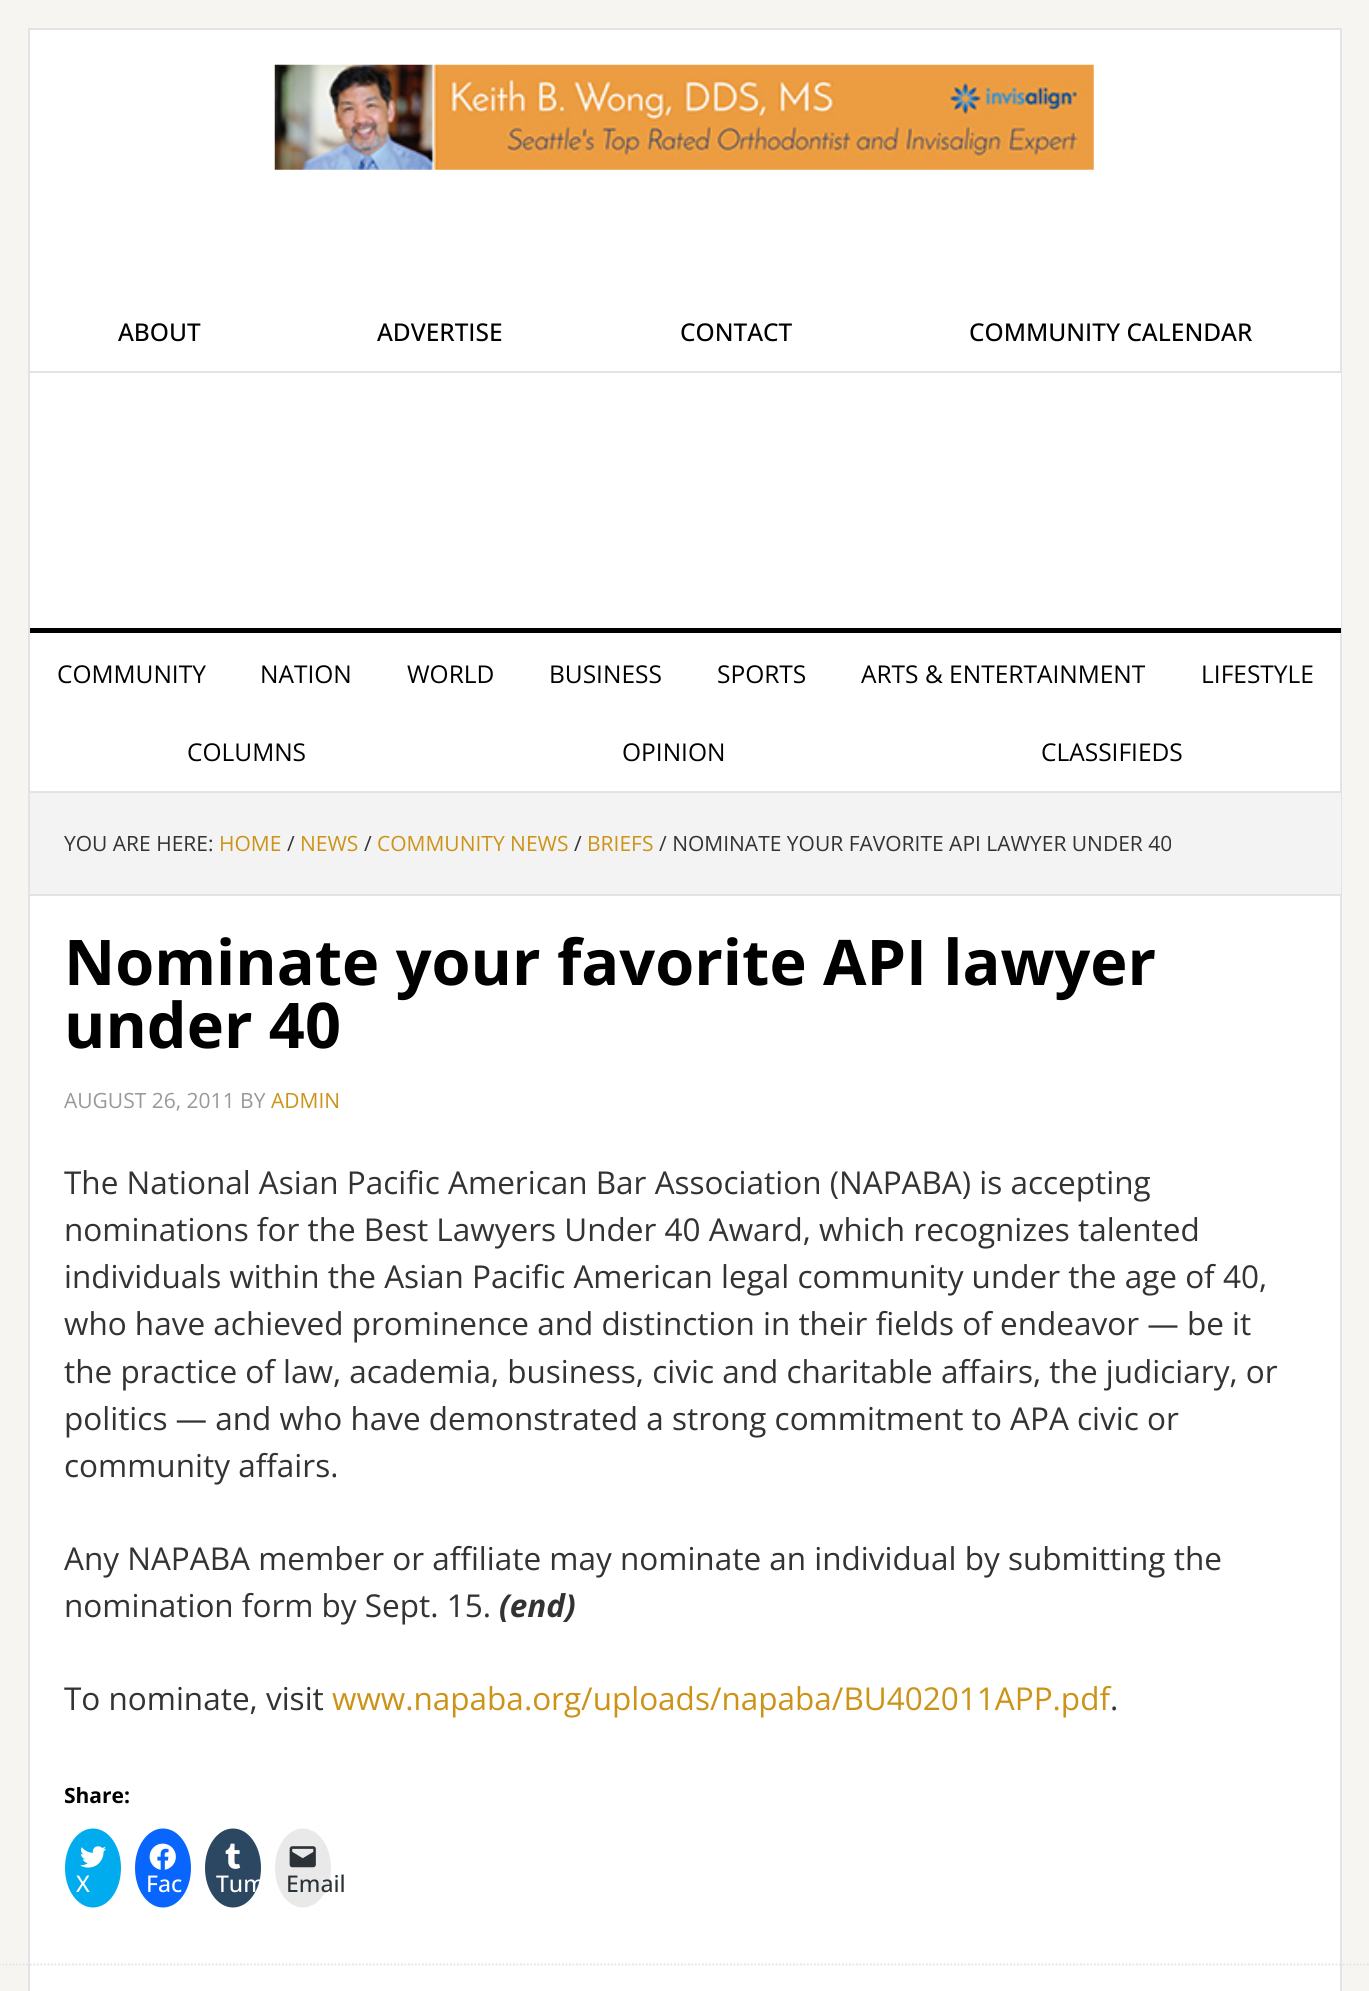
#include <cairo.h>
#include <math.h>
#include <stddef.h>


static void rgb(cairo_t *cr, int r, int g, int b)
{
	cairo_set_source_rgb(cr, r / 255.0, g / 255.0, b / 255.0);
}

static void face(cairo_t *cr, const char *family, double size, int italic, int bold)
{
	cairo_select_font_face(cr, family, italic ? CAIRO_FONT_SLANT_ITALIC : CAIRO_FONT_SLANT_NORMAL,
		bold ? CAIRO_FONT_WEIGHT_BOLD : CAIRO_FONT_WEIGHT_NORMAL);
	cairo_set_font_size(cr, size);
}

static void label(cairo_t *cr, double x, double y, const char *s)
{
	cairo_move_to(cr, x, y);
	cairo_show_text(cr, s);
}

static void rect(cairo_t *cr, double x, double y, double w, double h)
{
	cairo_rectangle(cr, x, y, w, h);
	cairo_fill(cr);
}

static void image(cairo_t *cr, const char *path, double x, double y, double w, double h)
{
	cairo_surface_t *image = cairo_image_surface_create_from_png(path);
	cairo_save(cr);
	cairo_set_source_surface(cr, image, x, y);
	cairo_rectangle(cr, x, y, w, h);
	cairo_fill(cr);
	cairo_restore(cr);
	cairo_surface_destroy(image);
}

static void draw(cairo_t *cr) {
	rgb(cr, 246, 245, 242);
	cairo_paint(cr);
	rgb(cr, 255, 255, 255);
	cairo_rectangle(cr, 29, 29, 1312, 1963);
	cairo_fill_preserve(cr);
	rgb(cr, 227, 227, 227);
	cairo_stroke(cr);
	image(cr, "image0.png", 274, 64, 820, 106);
	rect(cr, 30, 371, 1311, 2);
	face(cr, "Open Sans Medium", 24.5, 0, 0);
	rgb(cr, 0, 0, 0);
	label(cr, 118, 341, "ABOUT");
	label(cr, 377, 341, "ADVERTISE");
	label(cr, 680, 341, "CONTACT");
	label(cr, 969, 341, "COMMUNITY CALENDAR");
	rgb(cr, 255, 255, 255);
	rect(cr, 1340, 373, 1, 261);
	rgb(cr, 0, 0, 0);
	rect(cr, 30, 628, 1311, 5);
	rgb(cr, 227, 227, 227);
	rect(cr, 30, 791, 1311, 2);
	face(cr, "Open Sans", 24.5, 0, 0);
	rgb(cr, 0, 0, 0);
	label(cr, 57, 683, "COMMUNITY");
	label(cr, 260, 683, "NATION");
	label(cr, 407, 683, "WORLD");
	label(cr, 549, 683, "BUSINESS");
	label(cr, 717, 683, "SPORTS");
	label(cr, 861, 683, "ARTS & ENTERTAINMENT");
	label(cr, 1201, 683, "LIFESTYLE");
	label(cr, 187, 761, "COLUMNS");
	label(cr, 622, 761, "OPINION");
	label(cr, 1041, 761, "CLASSIFIEDS");
	rgb(cr, 243, 243, 243);
	rect(cr, 30, 793, 1311, 101);
	rgb(cr, 227, 227, 227);
	rect(cr, 30, 894, 1311, 2);
	face(cr, "Open Sans", 21, 0, 0);
	rgb(cr, 51, 51, 51);
	label(cr, 64, 851, "YOU ARE HERE:");
	rgb(cr, 204, 147, 24);
	label(cr, 219, 851, "HOME");
	rgb(cr, 51, 51, 51);
	label(cr, 287, 851, "/");
	rgb(cr, 204, 147, 24);
	label(cr, 300, 851, "NEWS");
	rgb(cr, 51, 51, 51);
	label(cr, 364, 851, "/");
	rgb(cr, 204, 147, 24);
	label(cr, 377, 851, "COMMUNITY NEWS");
	rgb(cr, 51, 51, 51);
	label(cr, 574, 851, "/");
	rgb(cr, 204, 147, 24);
	label(cr, 587, 851, "BRIEFS");
	rgb(cr, 51, 51, 51);
	label(cr, 659, 851, "/ NOMINATE YOUR FAVORITE API LAWYER UNDER 40");
	face(cr, "Open Sans", 63, 0, 1);
	rgb(cr, 0, 0, 0);
	label(cr, 64, 985, "Nominate your favorite API lawyer");
	label(cr, 64, 1048, "under 40");
	face(cr, "Open Sans", 21, 0, 0);
	rgb(cr, 153, 153, 153);
	label(cr, 64, 1108, "AUGUST 26, 2011 BY");
	rgb(cr, 204, 147, 24);
	label(cr, 271, 1108, "ADMIN");
	face(cr, "Open Sans", 31.5, 0, 0);
	rgb(cr, 51, 51, 51);
	label(cr, 64, 1194, "The National Asian Pacific American Bar Association (NAPABA) is accepting");
	label(cr, 64, 1241, "nominations for the Best Lawyers Under 40 Award, which recognizes talented");
	label(cr, 64, 1288, "individuals within the Asian Pacific American legal community under the age of 40,");
	label(cr, 64, 1335, "who have achieved prominence and distinction in their fields of endeavor — be it");
	label(cr, 64, 1383, "the practice of law, academia, business, civic and charitable affairs, the judiciary, or");
	label(cr, 64, 1430, "politics — and who have demonstrated a strong commitment to APA civic or");
	label(cr, 64, 1477, "community affairs.");
	label(cr, 64, 1570, "Any NAPABA member or affiliate may nominate an individual by submitting the");
	label(cr, 64, 1617, "nomination form by Sept. 15.");
	face(cr, "Open Sans", 31.5, 1, 1);
	label(cr, 499, 1617, "(end)");
	face(cr, "Open Sans", 31.5, 0, 0);
	label(cr, 64, 1710, "To nominate, visit");
	rgb(cr, 204, 147, 24);
	label(cr, 332, 1710, "www.napaba.org/uploads/napaba/BU402011APP.pdf");
	rgb(cr, 51, 51, 51);
	label(cr, 1110, 1710, ".");
	face(cr, "Open Sans", 21, 0, 1);
	rgb(cr, 0, 0, 0);
	label(cr, 64, 1803, "Share:");
	rgb(cr, 0, 172, 238);
	cairo_new_path(cr);
	cairo_move_to(cr, 93, 1828.5);
	cairo_curve_to(cr, 108.5, 1828.5, 121, 1846, 121, 1868);
	cairo_curve_to(cr, 121, 1890, 108.5, 1907.5, 93, 1907.5);
	cairo_curve_to(cr, 77.5, 1907.5, 65, 1890, 65, 1868);
	cairo_curve_to(cr, 65, 1846, 77.5, 1828.5, 93, 1828.5);
	cairo_close_path(cr);
	cairo_fill(cr);
	image(cr, "image1.png", 80, 1846, 26, 22);
	face(cr, "Open Sans Medium", 23, 0, 0);
	rgb(cr, 255, 255, 255);
	label(cr, 76, 1892, "X");
	rgb(cr, 8, 102, 255);
	cairo_new_path(cr);
	cairo_move_to(cr, 163, 1828.5);
	cairo_curve_to(cr, 178.5, 1828.5, 191, 1846, 191, 1868);
	cairo_curve_to(cr, 191, 1890, 178.5, 1907.5, 163, 1907.5);
	cairo_curve_to(cr, 147.5, 1907.5, 135, 1890, 135, 1868);
	cairo_curve_to(cr, 135, 1846, 147.5, 1828.5, 163, 1828.5);
	cairo_close_path(cr);
	cairo_fill(cr);
	image(cr, "image2.png", 149, 1843, 27, 27);
	rgb(cr, 255, 255, 255);
	label(cr, 146, 1892, "Fac");
	rgb(cr, 44, 71, 98);
	cairo_new_path(cr);
	cairo_move_to(cr, 233, 1828.5);
	cairo_curve_to(cr, 248.5, 1828.5, 261, 1846, 261, 1868);
	cairo_curve_to(cr, 261, 1890, 248.5, 1907.5, 233, 1907.5);
	cairo_curve_to(cr, 217.5, 1907.5, 205, 1890, 205, 1868);
	cairo_curve_to(cr, 205, 1846, 217.5, 1828.5, 233, 1828.5);
	cairo_close_path(cr);
	cairo_fill(cr);
	image(cr, "image3.png", 225, 1843, 16, 26);
	rgb(cr, 255, 255, 255);
	label(cr, 216, 1892, "Tum");
	rgb(cr, 233, 233, 233);
	cairo_new_path(cr);
	cairo_move_to(cr, 303, 1828.5);
	cairo_curve_to(cr, 318.5, 1828.5, 331, 1846, 331, 1868);
	cairo_curve_to(cr, 331, 1890, 318.5, 1907.5, 303, 1907.5);
	cairo_curve_to(cr, 287.5, 1907.5, 275, 1890, 275, 1868);
	cairo_curve_to(cr, 275, 1846, 287.5, 1828.5, 303, 1828.5);
	cairo_close_path(cr);
	cairo_fill(cr);
	image(cr, "image4.png", 289, 1846, 27, 22);
	rgb(cr, 44, 51, 56);
	label(cr, 286, 1892, "Email");
	cairo_new_path(cr);
	cairo_move_to(cr, -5, 1964.5);
	cairo_line_to(cr, 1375.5, 1964.5);
	rgb(cr, 227, 227, 227);
	cairo_set_line_width(cr, 1.8);
	cairo_set_dash(cr, (double[]){1.75, 1.75}, 2, 0);
	cairo_stroke(cr);
}

int main(void) {
	cairo_surface_t *surface = cairo_image_surface_create(CAIRO_FORMAT_RGB24, 1369, 1991);
	cairo_t *cr = cairo_create(surface);
	cairo_font_options_t *options = cairo_font_options_create();
	cairo_font_options_set_hint_metrics(options, CAIRO_HINT_METRICS_OFF);
	cairo_font_options_set_hint_style(options, CAIRO_HINT_STYLE_NONE);
	cairo_set_font_options(cr, options);
	cairo_set_miter_limit(cr, 4);
	draw(cr);
	cairo_surface_write_to_png(surface, "render.png");
	cairo_font_options_destroy(options);
	cairo_destroy(cr);
	cairo_surface_destroy(surface);
	return 0;
}
